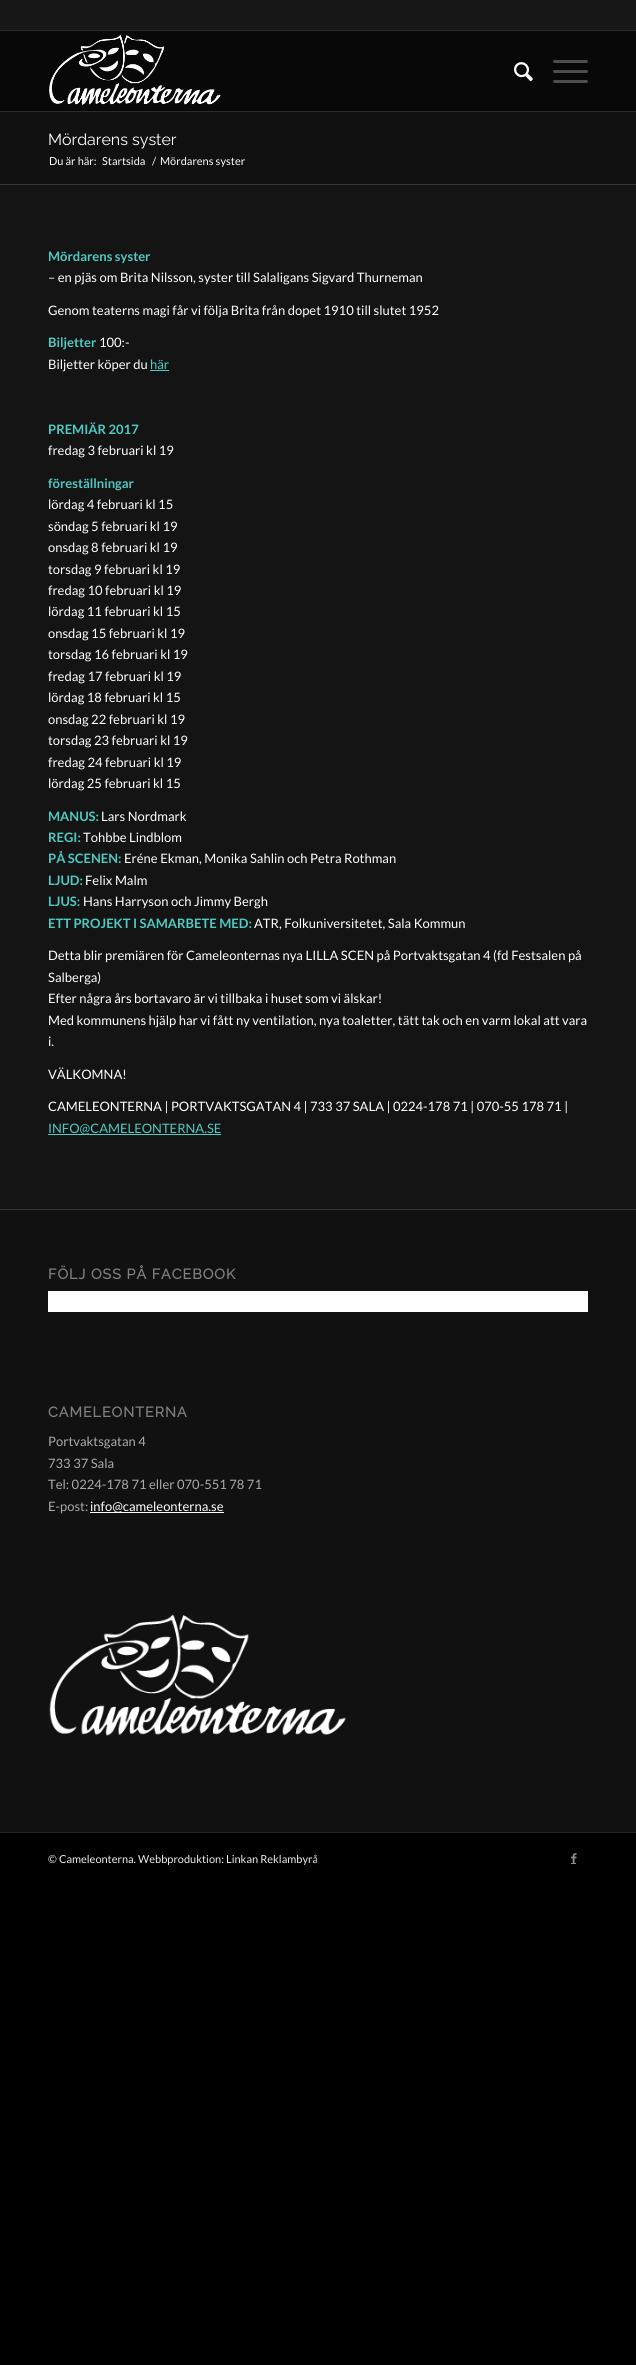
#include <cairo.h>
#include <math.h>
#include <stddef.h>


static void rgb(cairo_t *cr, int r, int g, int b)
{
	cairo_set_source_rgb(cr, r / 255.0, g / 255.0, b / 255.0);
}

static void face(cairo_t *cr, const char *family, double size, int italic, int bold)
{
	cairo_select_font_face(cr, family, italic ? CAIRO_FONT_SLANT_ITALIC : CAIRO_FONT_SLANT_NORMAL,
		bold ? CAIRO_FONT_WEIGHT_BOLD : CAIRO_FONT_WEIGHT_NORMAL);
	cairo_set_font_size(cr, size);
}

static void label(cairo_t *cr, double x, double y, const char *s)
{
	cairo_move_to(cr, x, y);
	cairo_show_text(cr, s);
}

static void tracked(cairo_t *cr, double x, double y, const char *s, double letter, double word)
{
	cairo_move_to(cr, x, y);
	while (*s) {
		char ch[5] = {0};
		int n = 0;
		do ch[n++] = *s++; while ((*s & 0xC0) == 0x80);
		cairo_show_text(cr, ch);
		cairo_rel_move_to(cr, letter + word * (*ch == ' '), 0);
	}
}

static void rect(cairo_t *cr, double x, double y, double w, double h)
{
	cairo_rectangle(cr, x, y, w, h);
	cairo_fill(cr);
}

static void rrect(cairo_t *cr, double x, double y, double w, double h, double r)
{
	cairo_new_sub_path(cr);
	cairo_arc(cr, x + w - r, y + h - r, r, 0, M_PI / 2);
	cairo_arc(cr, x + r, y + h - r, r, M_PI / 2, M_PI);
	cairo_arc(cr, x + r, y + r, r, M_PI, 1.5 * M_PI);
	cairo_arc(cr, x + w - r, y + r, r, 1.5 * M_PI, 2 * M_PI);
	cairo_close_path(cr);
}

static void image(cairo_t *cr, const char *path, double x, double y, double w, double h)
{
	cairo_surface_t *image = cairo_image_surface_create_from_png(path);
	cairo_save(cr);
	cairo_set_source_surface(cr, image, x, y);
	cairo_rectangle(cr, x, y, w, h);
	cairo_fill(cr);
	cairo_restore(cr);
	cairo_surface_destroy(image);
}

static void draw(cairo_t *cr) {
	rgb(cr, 0, 0, 0);
	cairo_paint(cr);
	rgb(cr, 23, 23, 23);
	rect(cr, 0, 0, 636, 30);
	rgb(cr, 43, 43, 43);
	rect(cr, 0, 30, 636, 1);
	rgb(cr, 8, 8, 8);
	rect(cr, 0, 31, 636, 80);
	rgb(cr, 43, 43, 43);
	rect(cr, 0, 111, 636, 1);
	image(cr, "image0.png", 49, 34, 172, 71);
	image(cr, "image1.png", 514, 62, 19, 20);
	rgb(cr, 77, 77, 77);
	rrect(cr, 553, 70, 35, 3, 1.5);
	cairo_fill(cr);
	rrect(cr, 553, 60, 35, 3, 1.5);
	cairo_fill(cr);
	rrect(cr, 553, 80, 35, 3, 1.5);
	cairo_fill(cr);
	rgb(cr, 17, 17, 17);
	rect(cr, 0, 112, 636, 72);
	face(cr, "Raleway Thin", 16, 0, 0);
	rgb(cr, 255, 255, 255);
	label(cr, 48, 145, "Mördarens syster");
	face(cr, "Lato", 11, 0, 0);
	label(cr, 49, 165, "Du är här:");
	label(cr, 102, 165, "Startsida");
	label(cr, 152, 165, "/");
	label(cr, 160, 165, "Mördarens syster");
	rgb(cr, 20, 20, 20);
	rect(cr, 0, 185, 636, 1024);
	rgb(cr, 54, 54, 54);
	rect(cr, 0, 184, 636, 1);
	face(cr, "Lato", 13, 0, 1);
	rgb(cr, 78, 202, 194);
	label(cr, 48, 261, "Mördarens syster");
	face(cr, "Lato", 13, 0, 0);
	rgb(cr, 255, 255, 255);
	label(cr, 48, 282, "– en pjäs om Brita Nilsson, syster till Salaligans Sigvard Thurneman");
	label(cr, 48, 315, "Genom teaterns magi får vi följa Brita från dopet 1910 till slutet 1952");
	face(cr, "Lato", 13, 0, 1);
	rgb(cr, 78, 202, 194);
	label(cr, 48, 347, "Biljetter");
	face(cr, "Lato", 13, 0, 0);
	rgb(cr, 255, 255, 255);
	label(cr, 99, 347, "100:-");
	label(cr, 48, 369, "Biljetter köper du");
	rgb(cr, 78, 202, 194);
	label(cr, 150, 369, "här");
	rect(cr, 150, 370, 19, 1);
	face(cr, "Lato", 13, 0, 1);
	label(cr, 48, 434, "PREMIÄR 2017");
	face(cr, "Lato", 13, 0, 0);
	rgb(cr, 255, 255, 255);
	label(cr, 48, 455, "fredag 3 februari kl 19");
	face(cr, "Lato", 13, 0, 1);
	rgb(cr, 78, 202, 194);
	label(cr, 48, 488, "föreställningar");
	face(cr, "Lato", 13, 0, 0);
	rgb(cr, 255, 255, 255);
	label(cr, 48, 509, "lördag 4 februari kl 15");
	label(cr, 48, 531, "söndag 5 februari kl 19");
	label(cr, 48, 552, "onsdag 8 februari kl 19");
	label(cr, 48, 574, "torsdag 9 februari kl 19");
	label(cr, 48, 595, "fredag 10 februari kl 19");
	label(cr, 48, 616, "lördag 11 februari kl 15");
	label(cr, 48, 638, "onsdag 15 februari kl 19");
	label(cr, 48, 659, "torsdag 16 februari kl 19");
	label(cr, 48, 681, "fredag 17 februari kl 19");
	label(cr, 48, 702, "lördag 18 februari kl 15");
	label(cr, 48, 724, "onsdag 22 februari kl 19");
	label(cr, 48, 745, "torsdag 23 februari kl 19");
	label(cr, 48, 767, "fredag 24 februari kl 19");
	label(cr, 48, 788, "lördag 25 februari kl 15");
	face(cr, "Lato", 13, 0, 1);
	rgb(cr, 78, 202, 194);
	label(cr, 48, 821, "MANUS:");
	face(cr, "Lato", 13, 0, 0);
	rgb(cr, 255, 255, 255);
	label(cr, 101, 821, "Lars Nordmark");
	face(cr, "Lato", 13, 0, 1);
	rgb(cr, 78, 202, 194);
	label(cr, 48, 842, "REGI:");
	face(cr, "Lato", 13, 0, 0);
	rgb(cr, 255, 255, 255);
	label(cr, 83, 842, "Tohbbe Lindblom");
	face(cr, "Lato", 13, 0, 1);
	rgb(cr, 78, 202, 194);
	label(cr, 48, 863, "PÅ SCENEN:");
	face(cr, "Lato", 13, 0, 0);
	rgb(cr, 255, 255, 255);
	label(cr, 124, 863, "Eréne Ekman, Monika Sahlin och Petra Rothman");
	face(cr, "Lato", 13, 0, 1);
	rgb(cr, 78, 202, 194);
	label(cr, 48, 885, "LJUD:");
	face(cr, "Lato", 13, 0, 0);
	rgb(cr, 255, 255, 255);
	label(cr, 85, 885, "Felix Malm");
	face(cr, "Lato", 13, 0, 1);
	rgb(cr, 78, 202, 194);
	label(cr, 48, 906, "LJUS:");
	face(cr, "Lato", 13, 0, 0);
	rgb(cr, 255, 255, 255);
	label(cr, 83, 906, "Hans Harryson och Jimmy Bergh");
	face(cr, "Lato", 13, 0, 1);
	rgb(cr, 78, 202, 194);
	label(cr, 48, 928, "ETT PROJEKT I SAMARBETE MED:");
	face(cr, "Lato", 13, 0, 0);
	rgb(cr, 255, 255, 255);
	label(cr, 254, 928, "ATR, Folkuniversitetet, Sala Kommun");
	label(cr, 48, 960, "Detta blir premiären för Cameleonternas nya LILLA SCEN på Portvaktsgatan 4 (fd Festsalen på");
	label(cr, 48, 982, "Salberga)");
	label(cr, 48, 1003, "Efter några års bortavaro är vi tillbaka i huset som vi älskar!");
	label(cr, 48, 1025, "Med kommunens hjälp har vi fått ny ventilation, nya toaletter, tätt tak och en varm lokal att vara");
	label(cr, 48, 1046, "i.");
	label(cr, 48, 1079, "VÄLKOMNA!");
	label(cr, 48, 1111, "CAMELEONTERNA | PORTVAKTSGATAN 4 | 733 37 SALA | 0224-178 71 | 070-55 178 71 |");
	rgb(cr, 78, 202, 194);
	rect(cr, 48, 1134, 173, 1);
	label(cr, 48, 1133, "INFO@CAMELEONTERNA.SE");
	rgb(cr, 17, 17, 17);
	rect(cr, 0, 1210, 636, 622);
	rgb(cr, 54, 54, 54);
	rect(cr, 0, 1209, 636, 1);
	face(cr, "Raleway", 14.25, 0, 1);
	rgb(cr, 128, 128, 128);
	tracked(cr, 48, 1279, "FÖLJ OSS PÅ FACEBOOK", 1, 0);
	rgb(cr, 255, 255, 255);
	rect(cr, 48, 1291, 540, 21);
	rgb(cr, 128, 128, 128);
	tracked(cr, 48, 1417, "CAMELEONTERNA", 1, 0);
	face(cr, "Lato", 13, 0, 0);
	rgb(cr, 170, 170, 170);
	label(cr, 48, 1446, "Portvaktsgatan 4");
	label(cr, 48, 1468, "733 37 Sala");
	label(cr, 48, 1489, "Tel: 0224-178 71 eller 070-551 78 71");
	label(cr, 48, 1511, "E-post:");
	rgb(cr, 255, 255, 255);
	rect(cr, 90, 1512, 134, 1);
	label(cr, 90, 1511, "info@cameleonterna.se");
	image(cr, "image2.png", 49, 1614, 297, 122);
	rgb(cr, 34, 34, 34);
	rect(cr, 0, 1832, 636, 1);
	face(cr, "Lato", 11, 0, 0);
	rgb(cr, 238, 238, 238);
	label(cr, 48, 1863, "© Cameleonterna. Webbproduktion: Linkan Reklambyrå");
	image(cr, "image3.png", 571, 1853, 6, 10);
	rgb(cr, 140, 140, 140);
	rect(cr, 571, 1863, 5, 1);
}

int main(void) {
	cairo_surface_t *surface = cairo_image_surface_create(CAIRO_FORMAT_RGB24, 636, 2365);
	cairo_t *cr = cairo_create(surface);
	cairo_font_options_t *options = cairo_font_options_create();
	cairo_font_options_set_hint_metrics(options, CAIRO_HINT_METRICS_OFF);
	cairo_font_options_set_hint_style(options, CAIRO_HINT_STYLE_NONE);
	cairo_set_font_options(cr, options);
	cairo_set_miter_limit(cr, 4);
	draw(cr);
	cairo_surface_write_to_png(surface, "render.png");
	cairo_font_options_destroy(options);
	cairo_destroy(cr);
	cairo_surface_destroy(surface);
	return 0;
}
